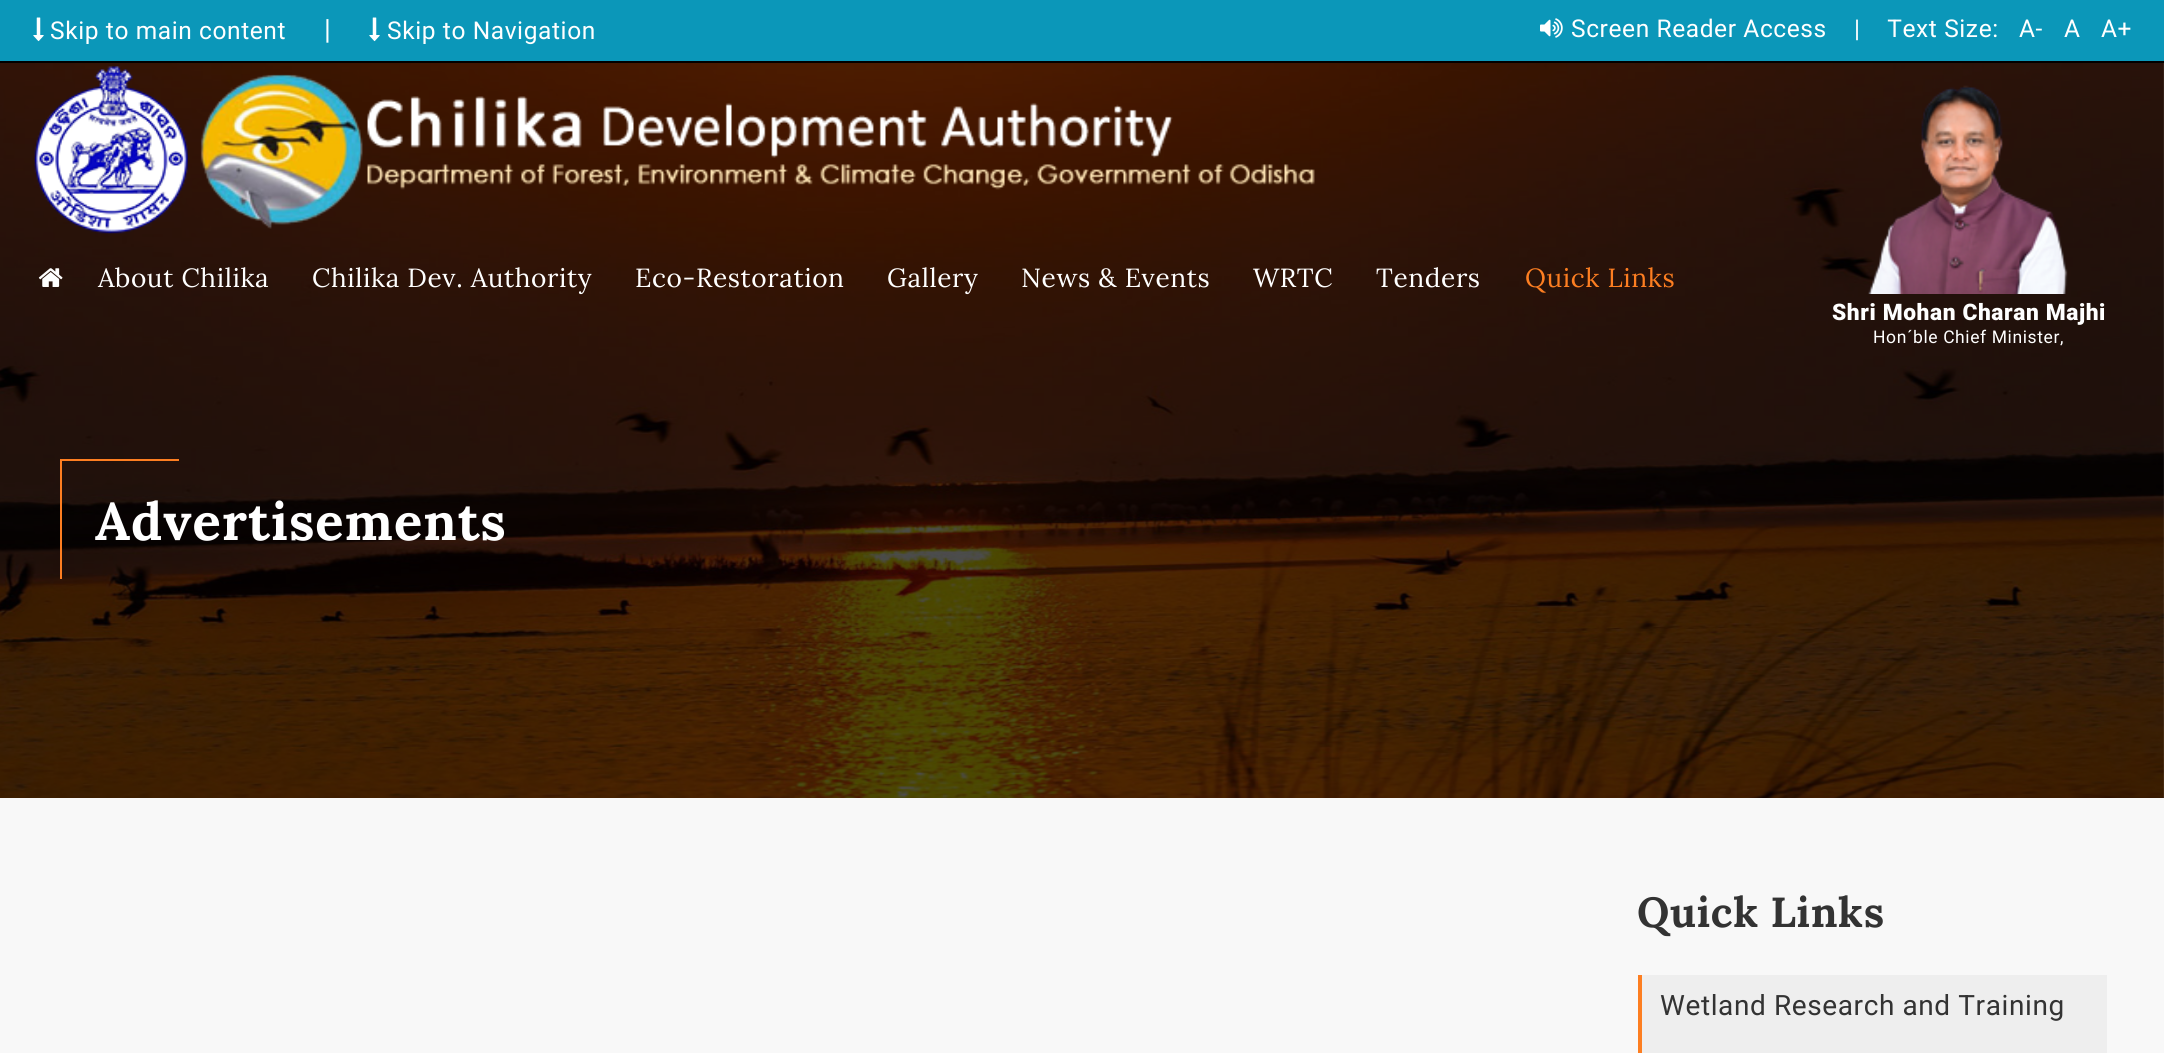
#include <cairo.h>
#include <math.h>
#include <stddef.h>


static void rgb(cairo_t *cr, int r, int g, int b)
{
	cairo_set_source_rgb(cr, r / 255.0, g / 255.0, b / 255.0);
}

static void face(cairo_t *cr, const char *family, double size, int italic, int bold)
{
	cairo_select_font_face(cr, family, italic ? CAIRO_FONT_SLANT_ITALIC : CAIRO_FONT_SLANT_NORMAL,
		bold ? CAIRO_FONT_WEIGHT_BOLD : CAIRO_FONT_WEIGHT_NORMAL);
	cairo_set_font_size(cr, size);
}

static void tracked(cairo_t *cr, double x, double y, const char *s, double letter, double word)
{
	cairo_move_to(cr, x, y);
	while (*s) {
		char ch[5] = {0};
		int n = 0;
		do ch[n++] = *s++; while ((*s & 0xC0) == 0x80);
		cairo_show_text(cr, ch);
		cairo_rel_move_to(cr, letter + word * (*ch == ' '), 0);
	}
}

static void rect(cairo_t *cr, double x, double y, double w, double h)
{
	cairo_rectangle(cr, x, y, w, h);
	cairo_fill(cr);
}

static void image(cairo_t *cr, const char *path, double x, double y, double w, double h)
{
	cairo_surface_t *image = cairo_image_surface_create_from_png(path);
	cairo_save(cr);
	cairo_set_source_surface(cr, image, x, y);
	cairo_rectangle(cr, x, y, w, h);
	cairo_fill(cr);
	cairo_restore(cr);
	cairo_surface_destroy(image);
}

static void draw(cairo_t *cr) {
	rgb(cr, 255, 255, 255);
	cairo_paint(cr);
	image(cr, "image0.png", 0, 63, 2164, 735);
	rgb(cr, 11, 151, 185);
	rect(cr, 0, 0, 2164, 61);
	rgb(cr, 0, 0, 0);
	rect(cr, 0, 61, 2164, 2);
	image(cr, "image1.png", 33, 17, 11, 25);
	face(cr, "Roboto", 24.5, 0, 0);
	rgb(cr, 255, 255, 255);
	tracked(cr, 50, 39, "Skip to main content", 0.6, 0);
	face(cr, "Roboto", 28, 0, 0);
	tracked(cr, 324, 39, "|", 0.6, 0);
	image(cr, "image1.png", 369, 17, 11, 25);
	face(cr, "Roboto", 24.5, 0, 0);
	tracked(cr, 387, 39, "Skip to Navigation", 0.6, 0);
	image(cr, "image2.png", 1540, 18, 23, 20);
	tracked(cr, 1571, 37, "Screen Reader Access", 0.6, 0);
	tracked(cr, 1854, 37, "|    Text Size:", 0.6, 0);
	tracked(cr, 2019, 37, "A-", 0.6, 0);
	tracked(cr, 2064, 37, "A", 0.6, 0);
	tracked(cr, 2101, 37, "A+", 0.6, 0);
	image(cr, "image3.png", 34, 66, 154, 168);
	image(cr, "image4.png", 38, 268, 25, 19);
	face(cr, "Lora", 26.25, 0, 0);
	tracked(cr, 98, 287, "About Chilika", 0.6, 0);
	tracked(cr, 312, 287, "Chilika Dev. Authority", 0.6, 0);
	tracked(cr, 635, 287, "Eco-Restoration", 0.6, 0);
	tracked(cr, 887, 287, "Gallery", 0.6, 0);
	tracked(cr, 1021, 287, "News & Events", 0.6, 0);
	tracked(cr, 1253, 287, "WRTC", 0.6, 0);
	tracked(cr, 1376, 287, "Tenders", 0.6, 0);
	rgb(cr, 253, 126, 33);
	tracked(cr, 1525, 287, "Quick Links", 0.6, 0);
	image(cr, "image5.png", 200, 74, 163, 155);
	image(cr, "image6.png", 367, 96, 948, 94);
	image(cr, "image7.png", 1868, 85, 200, 209);
	face(cr, "Roboto Black", 22.75, 0, 0);
	rgb(cr, 255, 255, 255);
	tracked(cr, 1832, 320, "Shri Mohan Charan Majhi", 0.6, 0);
	face(cr, "Roboto", 17.5, 0, 0);
	tracked(cr, 1873, 343, "Hon´ble Chief Minister,", 0.6, 0);
	rgb(cr, 253, 126, 33);
	rect(cr, 60, 459, 119, 2);
	rect(cr, 60, 460, 2, 119);
	face(cr, "Lora", 52.5, 0, 1);
	rgb(cr, 255, 255, 255);
	tracked(cr, 95, 540, "Advertisements", 1, 0);
	rgb(cr, 248, 248, 248);
	rect(cr, 0, 798, 2164, 255);
	face(cr, "Lora", 42, 0, 1);
	rgb(cr, 51, 51, 51);
	tracked(cr, 1637, 927, "Quick Links", 0.6, 0);
	rgb(cr, 238, 238, 238);
	rect(cr, 1642, 975, 465, 78);
	rgb(cr, 253, 126, 33);
	rect(cr, 1638, 975, 4, 78);
	face(cr, "Roboto", 28, 0, 0);
	rgb(cr, 51, 51, 51);
	tracked(cr, 1660, 1015, "Wetland Research and Training", 0.6, 0);
}

int main(void) {
	cairo_surface_t *surface = cairo_image_surface_create(CAIRO_FORMAT_RGB24, 2164, 1053);
	cairo_t *cr = cairo_create(surface);
	cairo_font_options_t *options = cairo_font_options_create();
	cairo_font_options_set_hint_metrics(options, CAIRO_HINT_METRICS_OFF);
	cairo_font_options_set_hint_style(options, CAIRO_HINT_STYLE_NONE);
	cairo_set_font_options(cr, options);
	cairo_set_miter_limit(cr, 4);
	draw(cr);
	cairo_surface_write_to_png(surface, "render.png");
	cairo_font_options_destroy(options);
	cairo_destroy(cr);
	cairo_surface_destroy(surface);
	return 0;
}
